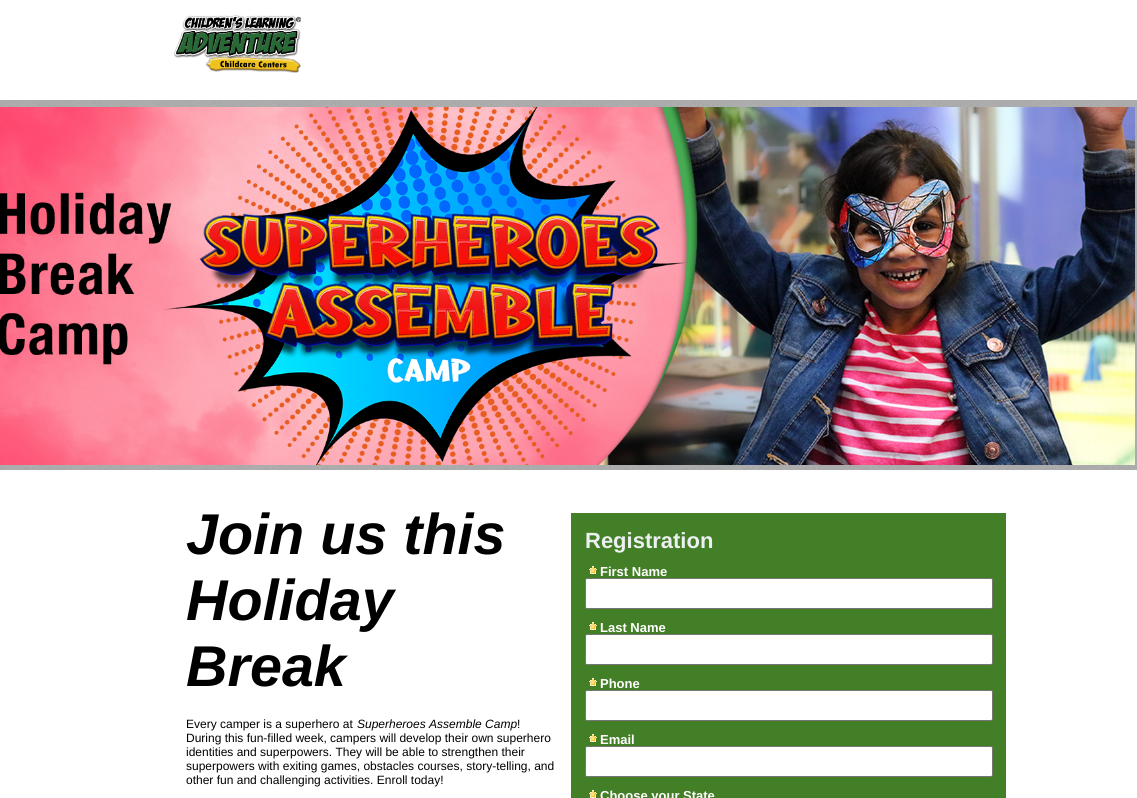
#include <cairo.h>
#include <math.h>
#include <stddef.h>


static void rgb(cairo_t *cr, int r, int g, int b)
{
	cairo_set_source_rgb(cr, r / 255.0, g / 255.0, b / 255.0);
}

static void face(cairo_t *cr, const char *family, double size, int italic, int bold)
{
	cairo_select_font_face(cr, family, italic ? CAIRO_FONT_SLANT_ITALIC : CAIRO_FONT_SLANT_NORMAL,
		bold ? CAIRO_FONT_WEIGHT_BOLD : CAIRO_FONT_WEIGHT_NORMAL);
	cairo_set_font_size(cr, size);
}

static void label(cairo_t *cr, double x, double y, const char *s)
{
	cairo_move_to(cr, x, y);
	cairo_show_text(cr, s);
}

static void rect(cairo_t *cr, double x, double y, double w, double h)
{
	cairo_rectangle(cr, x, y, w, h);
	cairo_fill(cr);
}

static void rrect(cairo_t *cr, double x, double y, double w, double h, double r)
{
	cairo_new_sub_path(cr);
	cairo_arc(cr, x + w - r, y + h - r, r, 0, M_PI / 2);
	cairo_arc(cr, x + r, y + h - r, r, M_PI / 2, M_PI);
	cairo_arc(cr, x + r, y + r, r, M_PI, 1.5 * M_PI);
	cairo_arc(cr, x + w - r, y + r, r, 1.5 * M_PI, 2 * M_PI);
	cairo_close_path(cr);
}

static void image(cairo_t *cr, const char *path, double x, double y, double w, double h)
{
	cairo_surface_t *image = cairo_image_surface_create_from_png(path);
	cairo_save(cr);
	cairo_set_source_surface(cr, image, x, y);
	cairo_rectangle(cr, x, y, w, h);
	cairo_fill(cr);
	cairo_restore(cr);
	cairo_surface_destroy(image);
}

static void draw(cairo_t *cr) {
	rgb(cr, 255, 255, 255);
	cairo_paint(cr);
	image(cr, "image0.png", 0, 100, 1137, 370);
	image(cr, "image1.png", 174, 15, 127, 58);
	image(cr, "image2.png", 0, 107, 1135, 358);
	face(cr, "Liberation Sans", 57.5, 1, 1);
	rgb(cr, 0, 0, 0);
	label(cr, 186, 554, "Join us this");
	label(cr, 186, 620, "Holiday");
	label(cr, 186, 686, "Break");
	face(cr, "Liberation Sans", 12, 0, 0);
	label(cr, 186, 728, "Every camper is a superhero at");
	face(cr, "Liberation Sans", 12, 1, 0);
	label(cr, 357, 728, "Superheroes Assemble Camp");
	face(cr, "Liberation Sans", 12, 0, 0);
	label(cr, 517, 728, "!");
	label(cr, 186, 742, "During this fun-filled week, campers will develop their own superhero");
	label(cr, 186, 756, "identities and superpowers. They will be able to strengthen their");
	label(cr, 186, 770, "superpowers with exiting games, obstacles courses, story-telling, and");
	label(cr, 186, 784, "other fun and challenging activities. Enroll today!");
	rgb(cr, 67, 127, 38);
	rect(cr, 571, 513, 435, 285);
	face(cr, "Liberation Sans", 22, 0, 1);
	rgb(cr, 236, 240, 241);
	label(cr, 585, 548, "Registration");
	image(cr, "image3.png", 589, 566, 8, 8);
	face(cr, "Liberation Sans", 13, 0, 1);
	rgb(cr, 255, 255, 255);
	label(cr, 600, 576, "First Name");
	rrect(cr, 585.5, 578.5, 407, 30, 1.5);
	cairo_fill_preserve(cr);
	rgb(cr, 118, 118, 118);
	cairo_set_line_width(cr, 1);
	cairo_stroke(cr);
	image(cr, "image3.png", 589, 622, 8, 8);
	rgb(cr, 255, 255, 255);
	label(cr, 600, 632, "Last Name");
	rrect(cr, 585.5, 634.5, 407, 30, 1.5);
	cairo_fill_preserve(cr);
	rgb(cr, 118, 118, 118);
	cairo_stroke(cr);
	image(cr, "image3.png", 589, 678, 8, 8);
	rgb(cr, 255, 255, 255);
	label(cr, 600, 688, "Phone");
	rrect(cr, 585.5, 690.5, 407, 30, 1.5);
	cairo_fill_preserve(cr);
	rgb(cr, 118, 118, 118);
	cairo_stroke(cr);
	image(cr, "image3.png", 589, 734, 8, 8);
	rgb(cr, 255, 255, 255);
	label(cr, 600, 744, "Email");
	rrect(cr, 585.5, 746.5, 407, 30, 1.5);
	cairo_fill_preserve(cr);
	rgb(cr, 118, 118, 118);
	cairo_stroke(cr);
	image(cr, "image3.png", 589, 790, 8, 8);
	rgb(cr, 255, 255, 255);
	label(cr, 600, 800, "Choose your State");
}

int main(void) {
	cairo_surface_t *surface = cairo_image_surface_create(CAIRO_FORMAT_RGB24, 1137, 798);
	cairo_t *cr = cairo_create(surface);
	cairo_font_options_t *options = cairo_font_options_create();
	cairo_font_options_set_hint_metrics(options, CAIRO_HINT_METRICS_OFF);
	cairo_font_options_set_hint_style(options, CAIRO_HINT_STYLE_NONE);
	cairo_set_font_options(cr, options);
	cairo_set_miter_limit(cr, 4);
	draw(cr);
	cairo_surface_write_to_png(surface, "render.png");
	cairo_font_options_destroy(options);
	cairo_destroy(cr);
	cairo_surface_destroy(surface);
	return 0;
}
